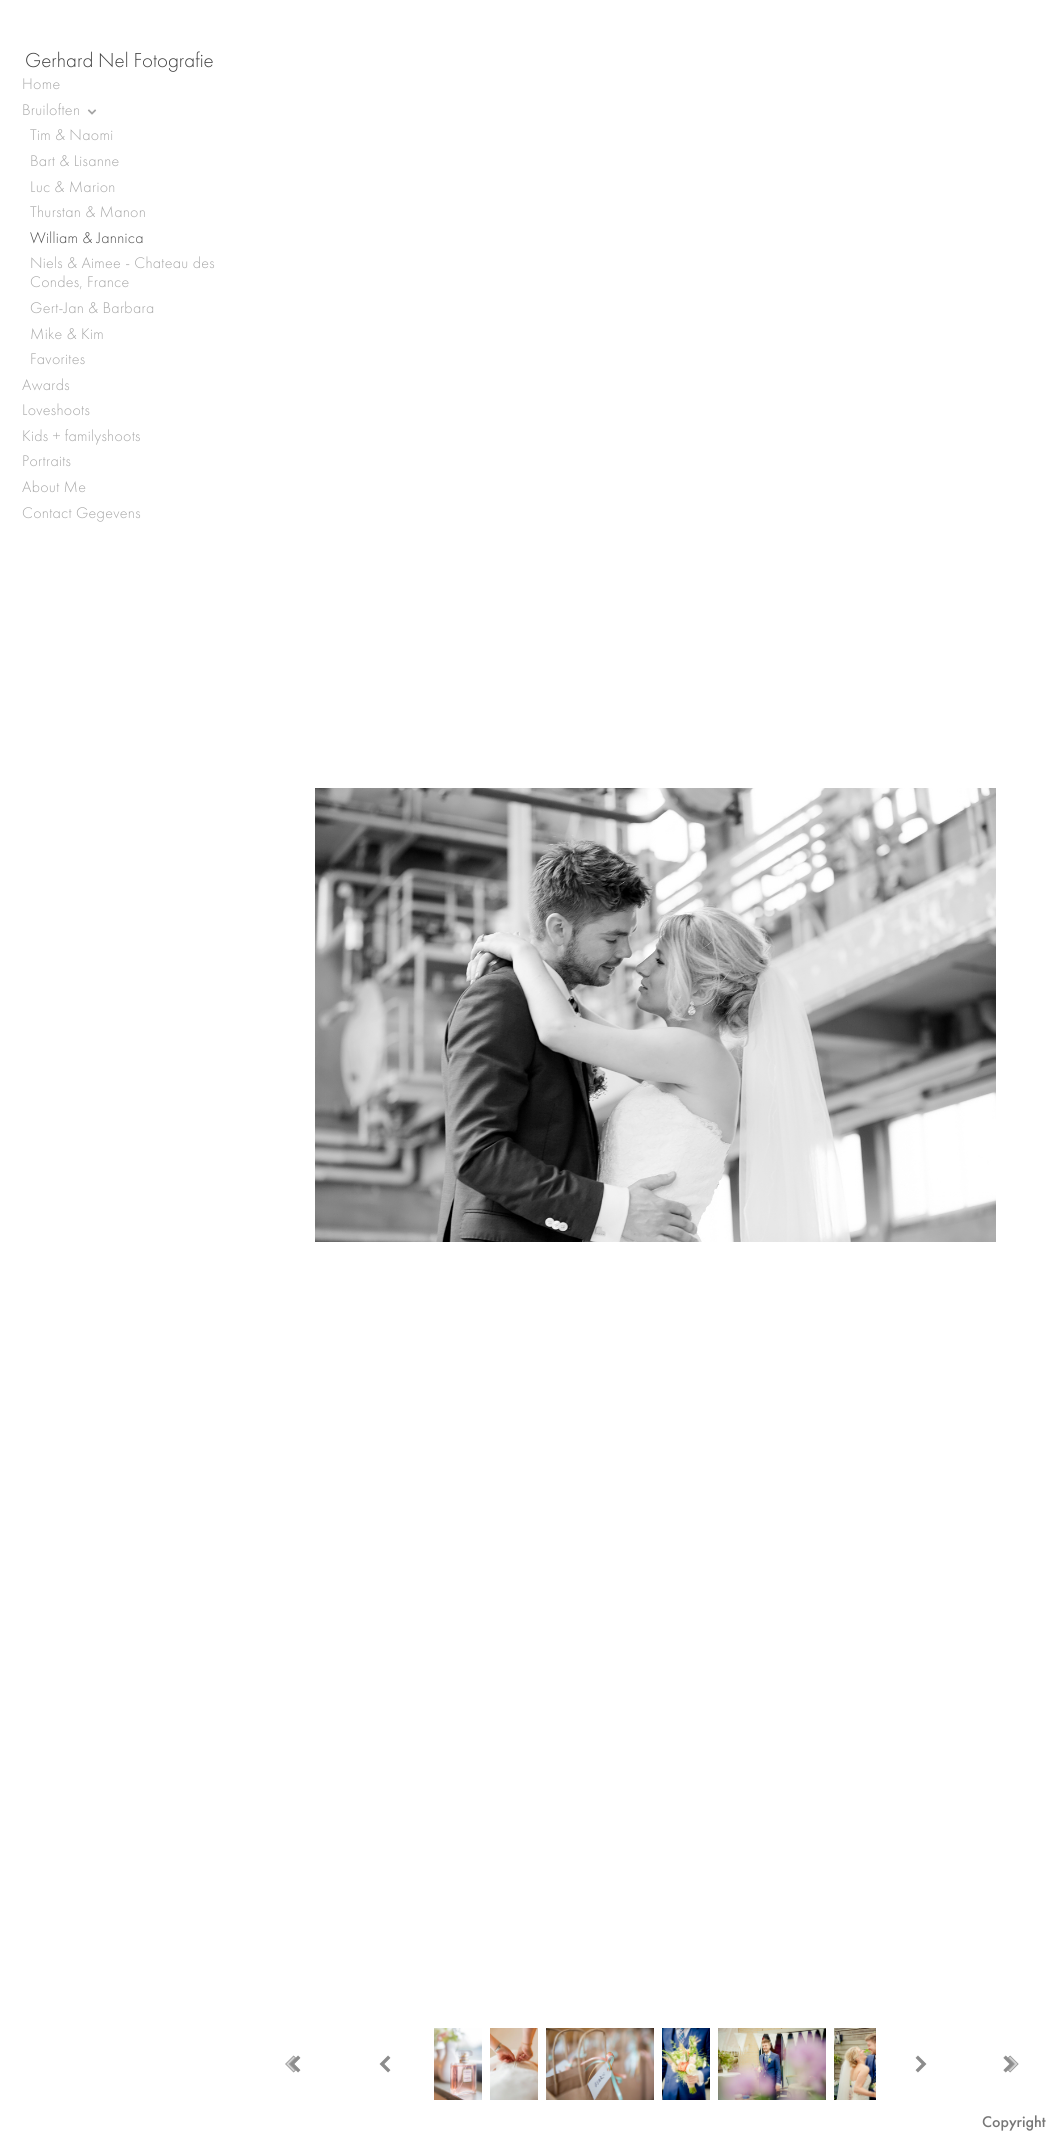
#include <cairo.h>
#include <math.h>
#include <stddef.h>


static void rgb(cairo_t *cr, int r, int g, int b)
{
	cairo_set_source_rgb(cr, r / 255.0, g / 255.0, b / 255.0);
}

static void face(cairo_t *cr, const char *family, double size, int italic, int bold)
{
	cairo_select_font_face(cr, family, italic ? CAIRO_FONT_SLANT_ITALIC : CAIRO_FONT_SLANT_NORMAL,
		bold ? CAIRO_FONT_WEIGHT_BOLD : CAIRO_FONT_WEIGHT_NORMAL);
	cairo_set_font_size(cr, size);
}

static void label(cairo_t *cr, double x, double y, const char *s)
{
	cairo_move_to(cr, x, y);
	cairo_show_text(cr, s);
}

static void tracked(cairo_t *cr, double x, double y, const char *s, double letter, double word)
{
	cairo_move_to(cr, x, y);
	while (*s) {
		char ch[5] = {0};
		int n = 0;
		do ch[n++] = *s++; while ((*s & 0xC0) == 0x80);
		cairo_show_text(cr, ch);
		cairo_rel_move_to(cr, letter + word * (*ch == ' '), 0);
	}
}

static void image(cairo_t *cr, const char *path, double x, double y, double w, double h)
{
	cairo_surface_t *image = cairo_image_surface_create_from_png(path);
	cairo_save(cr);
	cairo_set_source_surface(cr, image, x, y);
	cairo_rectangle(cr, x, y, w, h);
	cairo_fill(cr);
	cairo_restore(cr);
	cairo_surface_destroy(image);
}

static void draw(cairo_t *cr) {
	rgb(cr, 255, 255, 255);
	cairo_paint(cr);
	face(cr, "Futura PT Light", 21, 0, 0);
	rgb(cr, 63, 63, 63);
	label(cr, 25, 67, "Gerhard Nel Fotografie");
	face(cr, "Futura PT Light", 16, 0, 0);
	rgb(cr, 166, 166, 166);
	tracked(cr, 22, 89, "Home", 0.3, 0);
	tracked(cr, 22, 115, "Bruiloften", 0.3, 0);
	image(cr, "image0.png", 87, 109, 10, 6);
	tracked(cr, 30, 140, "Tim & Naomi", 0.3, 0);
	tracked(cr, 30, 166, "Bart & Lisanne", 0.3, 0);
	tracked(cr, 30, 192, "Luc & Marion", 0.3, 0);
	tracked(cr, 30, 217, "Thurstan & Manon", 0.3, 0);
	rgb(cr, 76, 76, 76);
	tracked(cr, 30, 243, "William & Jannica", 0.3, 0);
	rgb(cr, 166, 166, 166);
	tracked(cr, 30, 268, "Niels & Aimee - Chateau des", 0.3, 0);
	tracked(cr, 30, 287, "Condes, France", 0.3, 0);
	tracked(cr, 30, 313, "Gert-Jan & Barbara", 0.3, 0);
	tracked(cr, 30, 339, "Mike & Kim", 0.3, 0);
	tracked(cr, 30, 364, "Favorites", 0.3, 0);
	tracked(cr, 22, 390, "Awards", 0.3, 0);
	tracked(cr, 22, 415, "Loveshoots", 0.3, 0);
	tracked(cr, 22, 441, "Kids + familyshoots", 0.3, 0);
	tracked(cr, 22, 466, "Portraits", 0.3, 0);
	tracked(cr, 22, 492, "About Me", 0.3, 0);
	tracked(cr, 22, 518, "Contact Gegevens", 0.3, 0);
	image(cr, "image1.png", 315, 788, 681, 454);
	image(cr, "image2.png", 285, 2055, 16, 18);
	image(cr, "image3.png", 379, 2055, 12, 18);
	image(cr, "image4.png", 434, 2028, 48, 72);
	image(cr, "image5.png", 490, 2028, 48, 72);
	image(cr, "image6.png", 546, 2028, 108, 72);
	image(cr, "image7.png", 662, 2028, 48, 72);
	image(cr, "image8.png", 718, 2028, 108, 72);
	image(cr, "image9.png", 834, 2028, 42, 72);
	image(cr, "image10.png", 915, 2055, 12, 18);
	image(cr, "image11.png", 1003, 2055, 16, 18);
	face(cr, "Futura PT Medium", 16, 0, 0);
	rgb(cr, 118, 118, 118);
	label(cr, 982, 2127, "Copyright");
}

int main(void) {
	cairo_surface_t *surface = cairo_image_surface_create(CAIRO_FORMAT_RGB24, 1056, 2139);
	cairo_t *cr = cairo_create(surface);
	cairo_font_options_t *options = cairo_font_options_create();
	cairo_font_options_set_hint_metrics(options, CAIRO_HINT_METRICS_OFF);
	cairo_font_options_set_hint_style(options, CAIRO_HINT_STYLE_NONE);
	cairo_set_font_options(cr, options);
	cairo_set_miter_limit(cr, 4);
	draw(cr);
	cairo_surface_write_to_png(surface, "render.png");
	cairo_font_options_destroy(options);
	cairo_destroy(cr);
	cairo_surface_destroy(surface);
	return 0;
}
